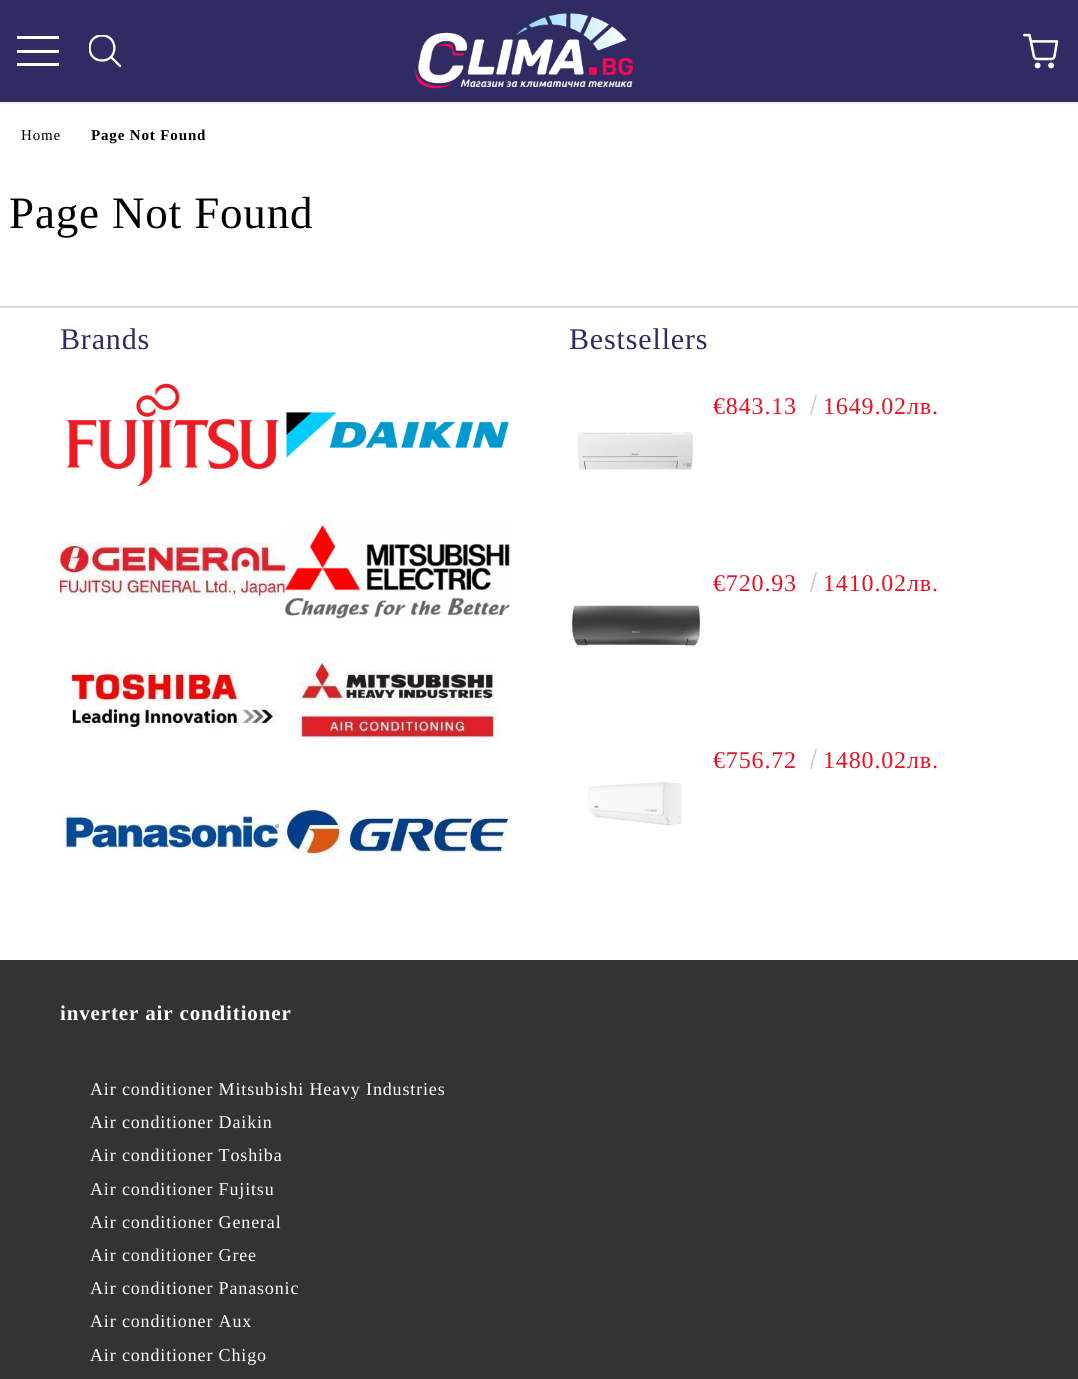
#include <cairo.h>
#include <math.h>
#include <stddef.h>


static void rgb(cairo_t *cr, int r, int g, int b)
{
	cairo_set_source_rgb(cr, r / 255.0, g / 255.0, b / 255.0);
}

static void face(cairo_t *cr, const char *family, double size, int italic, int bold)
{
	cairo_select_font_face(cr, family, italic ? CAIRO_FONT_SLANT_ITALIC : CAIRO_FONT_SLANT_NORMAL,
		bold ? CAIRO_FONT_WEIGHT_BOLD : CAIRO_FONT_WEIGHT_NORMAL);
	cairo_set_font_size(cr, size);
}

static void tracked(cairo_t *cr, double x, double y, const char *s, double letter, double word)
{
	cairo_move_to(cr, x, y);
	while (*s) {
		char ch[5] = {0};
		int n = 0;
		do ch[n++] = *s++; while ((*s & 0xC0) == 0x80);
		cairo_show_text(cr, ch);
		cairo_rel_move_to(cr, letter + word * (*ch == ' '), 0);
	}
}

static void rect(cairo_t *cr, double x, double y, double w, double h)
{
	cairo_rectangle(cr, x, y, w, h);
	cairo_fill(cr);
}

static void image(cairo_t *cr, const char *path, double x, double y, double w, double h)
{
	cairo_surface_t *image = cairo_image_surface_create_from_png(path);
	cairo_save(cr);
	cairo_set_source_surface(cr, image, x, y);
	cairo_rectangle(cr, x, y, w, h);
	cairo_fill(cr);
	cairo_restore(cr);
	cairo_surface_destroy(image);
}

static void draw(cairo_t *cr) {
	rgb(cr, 255, 255, 255);
	cairo_paint(cr);
	rgb(cr, 48, 43, 99);
	rect(cr, 0, 0, 1078, 102);
	rgb(cr, 241, 241, 241);
	rect(cr, 0, 102, 1078, 2);
	rgb(cr, 255, 255, 255);
	rect(cr, 17, 36, 42, 3);
	rect(cr, 17, 50, 42, 3);
	rect(cr, 17, 63, 42, 3);
	cairo_save(cr);
	cairo_rectangle(cr, 89, 35, 33, 33);
	cairo_clip(cr);
	cairo_new_path(cr);
	cairo_move_to(cr, 102, 35.5);
	cairo_curve_to(cr, 85.5, 35.5, 85.5, 60.5, 102, 60.5);
	cairo_curve_to(cr, 118.5, 60.5, 118.5, 35.5, 102, 35.5);
	cairo_close_path(cr);
	cairo_set_line_width(cr, 2.3);
	cairo_stroke(cr);
	cairo_restore(cr);
	cairo_new_path(cr);
	cairo_move_to(cr, 111, 57);
	cairo_line_to(cr, 120, 66);
	cairo_set_line_width(cr, 2.3);
	cairo_set_line_cap(cr, CAIRO_LINE_CAP_ROUND);
	cairo_stroke(cr);
	image(cr, "image0.png", 415, 13, 218, 76);
	image(cr, "image1.png", 1023, 33, 36, 36);
	face(cr, "Liberation Serif", 15, 0, 0);
	rgb(cr, 0, 0, 0);
	tracked(cr, 21, 140, "Home", 0.85, 0);
	face(cr, "Liberation Serif", 15, 0, 1);
	tracked(cr, 91, 140, "Page Not Found", 0.85, 0);
	face(cr, "Liberation Serif", 45, 0, 0);
	tracked(cr, 9, 228, "Page Not Found", 0.85, 0);
	rgb(cr, 221, 221, 221);
	rect(cr, 0, 306, 1078, 2);
	face(cr, "Liberation Serif", 30, 0, 0);
	rgb(cr, 48, 43, 99);
	tracked(cr, 60, 349, "Brands", 0.85, 0);
	image(cr, "image2.png", 66, 383, 214, 104);
	image(cr, "image3.png", 286, 412, 223, 46);
	image(cr, "image4.png", 60, 543, 225, 57);
	image(cr, "image5.png", 285, 525, 225, 94);
	image(cr, "image6.png", 66, 663, 210, 66);
	image(cr, "image7.png", 297, 658, 204, 84);
	image(cr, "image8.png", 60, 813, 225, 36);
	image(cr, "image9.png", 285, 804, 225, 60);
	tracked(cr, 569, 349, "Bestsellers", 0.85, 0);
	face(cr, "Liberation Serif", 24, 0, 0);
	rgb(cr, 232, 18, 37);
	tracked(cr, 713, 414, "€843.13", 0.85, 0);
	rgb(cr, 203, 203, 203);
	cairo_new_path(cr);
	cairo_move_to(cr, 815.5, 394.5);
	cairo_line_to(cr, 817, 395);
	cairo_line_to(cr, 811.5, 415);
	cairo_line_to(cr, 810, 414.5);
	cairo_close_path(cr);
	cairo_fill(cr);
	rgb(cr, 232, 18, 37);
	tracked(cr, 823, 414, "1649.02лв.", 0.85, 0);
	image(cr, "image10.png", 577, 432, 116, 38);
	tracked(cr, 713, 591, "€720.93", 0.85, 0);
	rgb(cr, 203, 203, 203);
	cairo_new_path(cr);
	cairo_move_to(cr, 815.5, 571.5);
	cairo_line_to(cr, 817, 572);
	cairo_line_to(cr, 811.5, 592);
	cairo_line_to(cr, 810, 591.5);
	cairo_close_path(cr);
	cairo_fill(cr);
	rgb(cr, 232, 18, 37);
	tracked(cr, 823, 591, "1410.02лв.", 0.85, 0);
	image(cr, "image11.png", 569, 605, 132, 42);
	tracked(cr, 713, 768, "€756.72", 0.85, 0);
	rgb(cr, 203, 203, 203);
	cairo_new_path(cr);
	cairo_move_to(cr, 815.5, 748.5);
	cairo_line_to(cr, 817, 749);
	cairo_line_to(cr, 811.5, 769);
	cairo_line_to(cr, 810, 768.5);
	cairo_close_path(cr);
	cairo_fill(cr);
	rgb(cr, 232, 18, 37);
	tracked(cr, 823, 768, "1480.02лв.", 0.85, 0);
	image(cr, "image12.png", 588, 782, 94, 44);
	rgb(cr, 51, 51, 51);
	rect(cr, 0, 960, 1078, 419);
	face(cr, "Liberation Serif", 21, 0, 1);
	rgb(cr, 255, 255, 255);
	tracked(cr, 60, 1020, "inverter air conditioner", 0.85, 0);
	face(cr, "Liberation Serif", 18, 0, 0);
	tracked(cr, 90, 1095, "Air conditioner Mitsubishi Heavy Industries", 0.85, 0);
	tracked(cr, 90, 1128, "Air conditioner Daikin", 0.85, 0);
	tracked(cr, 90, 1161, "Air conditioner Toshiba", 0.85, 0);
	tracked(cr, 90, 1195, "Air conditioner Fujitsu", 0.85, 0);
	tracked(cr, 90, 1228, "Air conditioner General", 0.85, 0);
	tracked(cr, 90, 1261, "Air conditioner Gree", 0.85, 0);
	tracked(cr, 90, 1294, "Air conditioner Panasonic", 0.85, 0);
	tracked(cr, 90, 1327, "Air conditioner Aux", 0.85, 0);
	tracked(cr, 90, 1361, "Air conditioner Chigo", 0.85, 0);
}

int main(void) {
	cairo_surface_t *surface = cairo_image_surface_create(CAIRO_FORMAT_RGB24, 1078, 1379);
	cairo_t *cr = cairo_create(surface);
	cairo_font_options_t *options = cairo_font_options_create();
	cairo_font_options_set_hint_metrics(options, CAIRO_HINT_METRICS_OFF);
	cairo_font_options_set_hint_style(options, CAIRO_HINT_STYLE_NONE);
	cairo_set_font_options(cr, options);
	cairo_set_miter_limit(cr, 4);
	draw(cr);
	cairo_surface_write_to_png(surface, "render.png");
	cairo_font_options_destroy(options);
	cairo_destroy(cr);
	cairo_surface_destroy(surface);
	return 0;
}
